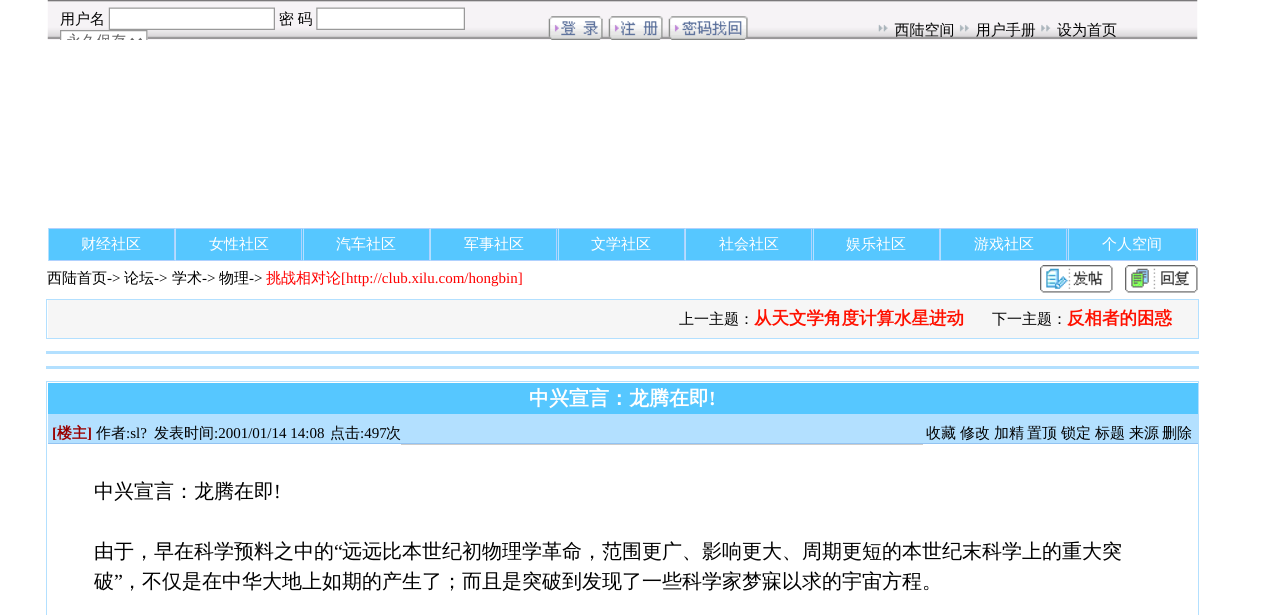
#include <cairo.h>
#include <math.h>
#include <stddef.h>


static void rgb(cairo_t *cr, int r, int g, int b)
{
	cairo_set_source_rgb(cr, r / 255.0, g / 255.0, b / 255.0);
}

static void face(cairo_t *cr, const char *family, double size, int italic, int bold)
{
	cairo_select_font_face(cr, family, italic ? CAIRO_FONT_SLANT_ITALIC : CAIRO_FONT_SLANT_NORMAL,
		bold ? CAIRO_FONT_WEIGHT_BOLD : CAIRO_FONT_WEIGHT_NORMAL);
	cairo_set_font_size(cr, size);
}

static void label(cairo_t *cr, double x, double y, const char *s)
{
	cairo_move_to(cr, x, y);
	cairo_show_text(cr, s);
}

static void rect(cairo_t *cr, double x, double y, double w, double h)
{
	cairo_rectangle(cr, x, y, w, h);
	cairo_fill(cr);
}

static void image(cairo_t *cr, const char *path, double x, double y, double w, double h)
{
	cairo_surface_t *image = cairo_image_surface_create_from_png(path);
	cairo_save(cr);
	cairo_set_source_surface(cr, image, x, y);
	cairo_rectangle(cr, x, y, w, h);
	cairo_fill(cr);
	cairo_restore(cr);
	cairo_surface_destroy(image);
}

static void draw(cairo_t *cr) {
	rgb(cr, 255, 255, 255);
	cairo_paint(cr);
	image(cr, "image0.png", 47, 0, 1151, 40);
	rgb(cr, 86, 199, 255);
	rect(cr, 49, 229, 125, 31);
	rgb(cr, 176, 209, 254);
	rect(cr, 48, 228, 1150, 1);
	rect(cr, 174, 228, 1, 33);
	rect(cr, 48, 260, 127, 1);
	rgb(cr, 179, 224, 255);
	rect(cr, 48, 228, 1, 33);
	face(cr, "WenQuanYi Zen Hei Medium", 15, 0, 0);
	rgb(cr, 255, 255, 255);
	label(cr, 81, 249, "财经社区");
	rgb(cr, 86, 199, 255);
	rect(cr, 176, 229, 127, 31);
	rgb(cr, 176, 209, 254);
	rect(cr, 301, 228, 1, 33);
	rect(cr, 175, 260, 128, 1);
	rgb(cr, 179, 224, 255);
	rect(cr, 175, 228, 1, 33);
	rgb(cr, 255, 255, 255);
	label(cr, 209, 249, "女性社区");
	rgb(cr, 86, 199, 255);
	rect(cr, 304, 229, 125, 31);
	rgb(cr, 176, 209, 254);
	rect(cr, 429, 228, 1, 33);
	rect(cr, 303, 260, 127, 1);
	rgb(cr, 179, 224, 255);
	rect(cr, 303, 228, 1, 33);
	rgb(cr, 255, 255, 255);
	label(cr, 336, 249, "汽车社区");
	rgb(cr, 86, 199, 255);
	rect(cr, 431, 229, 127, 31);
	rgb(cr, 176, 209, 254);
	rect(cr, 556, 228, 1, 33);
	rect(cr, 430, 260, 128, 1);
	rgb(cr, 179, 224, 255);
	rect(cr, 430, 228, 1, 33);
	rgb(cr, 255, 255, 255);
	label(cr, 464, 249, "军事社区");
	rgb(cr, 86, 199, 255);
	rect(cr, 559, 229, 125, 31);
	rgb(cr, 176, 209, 254);
	rect(cr, 684, 228, 1, 33);
	rect(cr, 558, 260, 127, 1);
	rgb(cr, 179, 224, 255);
	rect(cr, 558, 228, 1, 33);
	rgb(cr, 255, 255, 255);
	label(cr, 591, 249, "文学社区");
	rgb(cr, 86, 199, 255);
	rect(cr, 686, 229, 127, 31);
	rgb(cr, 176, 209, 254);
	rect(cr, 811, 228, 1, 33);
	rect(cr, 685, 260, 128, 1);
	rgb(cr, 179, 224, 255);
	rect(cr, 685, 228, 1, 33);
	rgb(cr, 255, 255, 255);
	label(cr, 719, 249, "社会社区");
	rgb(cr, 86, 199, 255);
	rect(cr, 814, 229, 125, 31);
	rgb(cr, 176, 209, 254);
	rect(cr, 939, 228, 1, 33);
	rect(cr, 813, 260, 127, 1);
	rgb(cr, 179, 224, 255);
	rect(cr, 813, 228, 1, 33);
	rgb(cr, 255, 255, 255);
	label(cr, 846, 249, "娱乐社区");
	rgb(cr, 86, 199, 255);
	rect(cr, 941, 229, 127, 31);
	rgb(cr, 176, 209, 254);
	rect(cr, 1066, 228, 1, 33);
	rect(cr, 940, 260, 128, 1);
	rgb(cr, 179, 224, 255);
	rect(cr, 940, 228, 1, 33);
	rgb(cr, 255, 255, 255);
	label(cr, 974, 249, "游戏社区");
	rgb(cr, 86, 199, 255);
	rect(cr, 1069, 229, 129, 31);
	rgb(cr, 176, 209, 254);
	rect(cr, 1196, 228, 1, 33);
	rect(cr, 1068, 260, 130, 1);
	rgb(cr, 179, 224, 255);
	rect(cr, 1068, 228, 1, 33);
	rgb(cr, 255, 255, 255);
	label(cr, 1102, 249, "个人空间");
	rgb(cr, 0, 0, 0);
	label(cr, 47, 283, "西陆首页");
	face(cr, "Liberation Serif", 15, 0, 0);
	label(cr, 107, 283, "->");
	face(cr, "WenQuanYi Zen Hei Medium", 15, 0, 0);
	label(cr, 124, 283, "论坛");
	face(cr, "Liberation Serif", 15, 0, 0);
	label(cr, 154, 283, "->");
	face(cr, "WenQuanYi Zen Hei Medium", 15, 0, 0);
	label(cr, 172, 283, "学术");
	face(cr, "Liberation Serif", 15, 0, 0);
	label(cr, 202, 283, "->");
	face(cr, "WenQuanYi Zen Hei Medium", 15, 0, 0);
	label(cr, 219, 283, "物理");
	face(cr, "Liberation Serif", 15, 0, 0);
	label(cr, 249, 283, "->");
	face(cr, "WenQuanYi Zen Hei Medium", 15, 0, 0);
	rgb(cr, 255, 0, 0);
	label(cr, 266, 283, "挑战相对论");
	face(cr, "Liberation Serif", 15, 0, 0);
	label(cr, 341, 283, "[http://club.xilu.com/hongbin]");
	image(cr, "image1.png", 1040, 265, 73, 28);
	image(cr, "image2.png", 1125, 265, 73, 28);
	cairo_rectangle(cr, 46.5, 299.5, 1152, 39);
	rgb(cr, 179, 224, 255);
	cairo_set_line_width(cr, 1);
	cairo_stroke(cr);
	rgb(cr, 246, 246, 246);
	rect(cr, 48, 300, 1150, 38);
	face(cr, "WenQuanYi Zen Hei Medium", 15, 0, 0);
	rgb(cr, 0, 0, 0);
	label(cr, 679, 324, "上一主题：");
	face(cr, "WenQuanYi Zen Hei", 17.5, 0, 1);
	rgb(cr, 255, 17, 0);
	label(cr, 754, 324, "从天文学角度计算水星进动");
	face(cr, "WenQuanYi Zen Hei Medium", 15, 0, 0);
	rgb(cr, 0, 0, 0);
	label(cr, 992, 324, "下一主题：");
	face(cr, "WenQuanYi Zen Hei", 17.5, 0, 1);
	rgb(cr, 255, 17, 0);
	label(cr, 1067, 324, "反相者的困惑");
	rgb(cr, 179, 224, 255);
	rect(cr, 46, 351, 1153, 3);
	rect(cr, 46, 366, 1153, 3);
	cairo_rectangle(cr, 46.5, 381.5, 1152, 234);
	cairo_stroke(cr);
	rgb(cr, 86, 199, 255);
	rect(cr, 48, 383, 1150, 31);
	face(cr, "WenQuanYi Zen Hei", 20, 0, 1);
	rgb(cr, 255, 255, 255);
	label(cr, 529, 405, "中兴宣言：龙腾在即");
	face(cr, "Liberation Serif", 20, 0, 1);
	label(cr, 709, 405, "!");
	rgb(cr, 179, 224, 255);
	rect(cr, 48, 414, 1150, 29);
	rgb(cr, 146, 195, 242);
	rect(cr, 48, 443, 1150, 1);
	face(cr, "Liberation Serif", 15, 0, 1);
	rgb(cr, 153, 0, 0);
	label(cr, 52, 438, "[");
	face(cr, "WenQuanYi Zen Hei", 15, 0, 1);
	label(cr, 57, 438, "楼主");
	face(cr, "Liberation Serif", 15, 0, 1);
	label(cr, 87, 438, "]");
	face(cr, "WenQuanYi Zen Hei Medium", 15, 0, 0);
	rgb(cr, 0, 0, 0);
	label(cr, 96, 438, "作者");
	face(cr, "Liberation Serif", 15, 0, 0);
	label(cr, 126, 438, ":sl?");
	face(cr, "WenQuanYi Zen Hei Medium", 15, 0, 0);
	label(cr, 154, 438, "发表时间");
	face(cr, "Liberation Serif", 15, 0, 0);
	label(cr, 214, 438, ":2001/01/14 14:08");
	face(cr, "WenQuanYi Zen Hei Medium", 15, 0, 0);
	label(cr, 330, 438, "点击");
	face(cr, "Liberation Serif", 15, 0, 0);
	label(cr, 360, 438, ":497");
	face(cr, "WenQuanYi Zen Hei Medium", 15, 0, 0);
	label(cr, 386, 438, "次");
	label(cr, 926, 438, "收藏");
	label(cr, 960, 438, "修改");
	label(cr, 994, 438, "加精");
	label(cr, 1027, 438, "置顶");
	label(cr, 1061, 438, "锁定");
	label(cr, 1095, 438, "标题");
	label(cr, 1129, 438, "来源");
	label(cr, 1162, 438, "删除");
	rgb(cr, 204, 204, 204);
	rect(cr, 401, 444, 522, 1);
	face(cr, "WenQuanYi Zen Hei Medium", 20, 0, 0);
	rgb(cr, 0, 0, 0);
	label(cr, 94, 498, "中兴宣言：龙腾在即");
	face(cr, "Liberation Serif", 20, 0, 0);
	label(cr, 274, 498, "!");
	face(cr, "WenQuanYi Zen Hei Medium", 20, 0, 0);
	label(cr, 94, 558, "由于，早在科学预料之中的");
	face(cr, "Liberation Serif", 20, 0, 0);
	label(cr, 334, 558, "“");
	face(cr, "WenQuanYi Zen Hei Medium", 20, 0, 0);
	label(cr, 342, 558, "远远比本世纪初物理学革命，范围更广、影响更大、周期更短的本世纪末科学上的重大突");
	label(cr, 94, 588, "破");
	face(cr, "Liberation Serif", 20, 0, 0);
	label(cr, 114, 588, "”");
	face(cr, "WenQuanYi Zen Hei Medium", 20, 0, 0);
	label(cr, 122, 588, "，不仅是在中华大地上如期的产生了；而且是突破到发现了一些科学家梦寐以求的宇宙方程。");
}

int main(void) {
	cairo_surface_t *surface = cairo_image_surface_create(CAIRO_FORMAT_RGB24, 1270, 615);
	cairo_t *cr = cairo_create(surface);
	cairo_font_options_t *options = cairo_font_options_create();
	cairo_font_options_set_hint_metrics(options, CAIRO_HINT_METRICS_OFF);
	cairo_font_options_set_hint_style(options, CAIRO_HINT_STYLE_NONE);
	cairo_set_font_options(cr, options);
	cairo_set_miter_limit(cr, 4);
	draw(cr);
	cairo_surface_write_to_png(surface, "render.png");
	cairo_font_options_destroy(options);
	cairo_destroy(cr);
	cairo_surface_destroy(surface);
	return 0;
}
